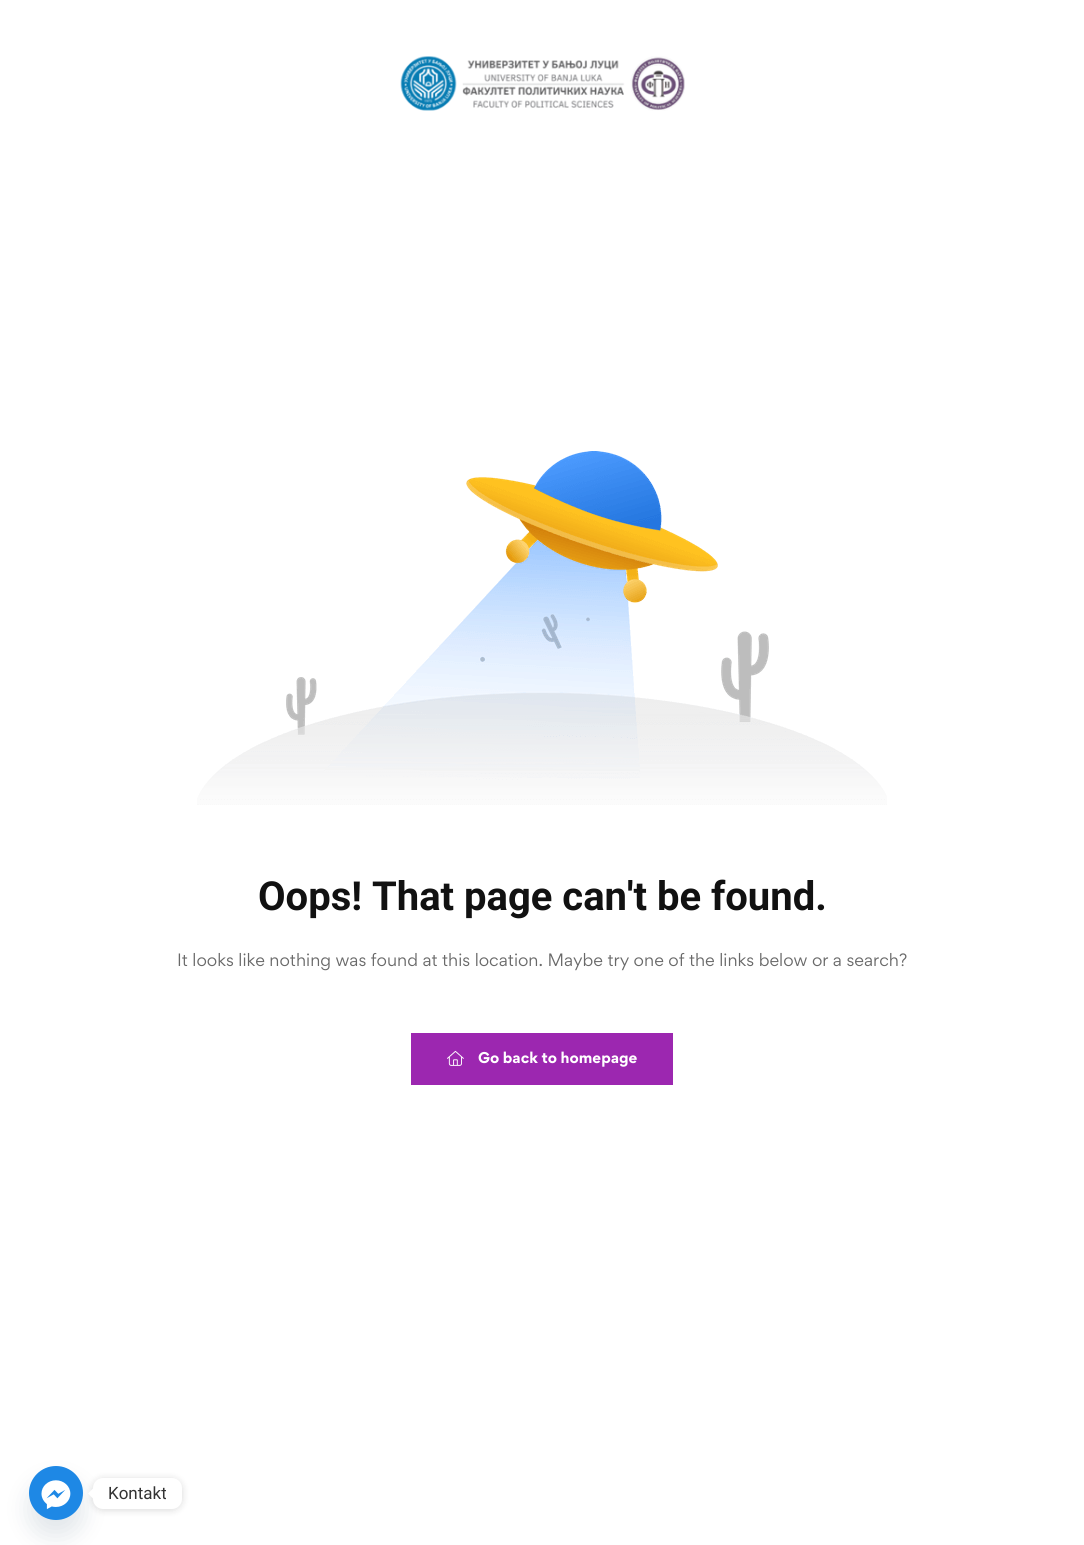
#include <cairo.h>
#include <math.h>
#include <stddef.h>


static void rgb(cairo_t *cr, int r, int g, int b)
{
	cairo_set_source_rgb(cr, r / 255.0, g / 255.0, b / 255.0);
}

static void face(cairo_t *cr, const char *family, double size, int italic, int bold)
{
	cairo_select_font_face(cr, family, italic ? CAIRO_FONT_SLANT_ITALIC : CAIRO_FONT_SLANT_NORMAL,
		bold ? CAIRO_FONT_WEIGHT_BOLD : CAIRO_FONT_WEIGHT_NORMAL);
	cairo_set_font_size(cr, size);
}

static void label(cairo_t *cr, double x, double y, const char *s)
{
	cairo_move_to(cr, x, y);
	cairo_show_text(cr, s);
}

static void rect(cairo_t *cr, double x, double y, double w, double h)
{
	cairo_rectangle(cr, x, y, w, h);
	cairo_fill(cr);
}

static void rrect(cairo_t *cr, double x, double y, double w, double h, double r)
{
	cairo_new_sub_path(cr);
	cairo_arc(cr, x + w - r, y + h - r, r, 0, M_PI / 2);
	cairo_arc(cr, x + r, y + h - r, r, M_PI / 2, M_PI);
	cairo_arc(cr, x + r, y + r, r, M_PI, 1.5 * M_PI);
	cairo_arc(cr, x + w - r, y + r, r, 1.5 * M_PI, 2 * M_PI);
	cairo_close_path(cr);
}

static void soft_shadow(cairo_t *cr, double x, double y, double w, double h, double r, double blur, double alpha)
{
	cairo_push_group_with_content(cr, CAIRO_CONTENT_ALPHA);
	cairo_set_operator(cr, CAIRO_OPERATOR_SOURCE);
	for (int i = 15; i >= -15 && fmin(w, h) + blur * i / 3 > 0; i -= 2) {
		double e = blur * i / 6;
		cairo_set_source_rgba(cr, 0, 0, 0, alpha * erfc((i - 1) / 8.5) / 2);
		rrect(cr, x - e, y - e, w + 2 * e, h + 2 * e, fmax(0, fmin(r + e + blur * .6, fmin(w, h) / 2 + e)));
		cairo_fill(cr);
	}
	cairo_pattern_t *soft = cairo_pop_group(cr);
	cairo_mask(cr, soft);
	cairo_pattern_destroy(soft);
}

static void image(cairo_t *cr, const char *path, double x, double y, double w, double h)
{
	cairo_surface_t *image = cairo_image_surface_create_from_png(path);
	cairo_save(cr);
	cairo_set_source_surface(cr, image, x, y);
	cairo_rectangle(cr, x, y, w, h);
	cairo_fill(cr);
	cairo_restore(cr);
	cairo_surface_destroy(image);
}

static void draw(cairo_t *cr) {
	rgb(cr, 255, 255, 255);
	cairo_paint(cr);
	image(cr, "image0.png", 400, 56, 285, 55);
	image(cr, "image1.png", 197, 451, 690, 354);
	face(cr, "Roboto", 40, 0, 1);
	rgb(cr, 17, 17, 17);
	label(cr, 258, 910, "Oops! That page can't be found.");
	face(cr, "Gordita", 16, 0, 0);
	rgb(cr, 105, 105, 105);
	label(cr, 177, 966, "It looks like nothing was found at this location. Maybe try one of the links below or a search?");
	rgb(cr, 156, 39, 176);
	rect(cr, 411, 1033, 262, 52);
	image(cr, "image2.png", 447, 1050, 17, 16);
	face(cr, "Gordita", 14, 0, 1);
	rgb(cr, 255, 255, 255);
	label(cr, 478, 1063, "Go back to homepage");
	rgb(cr, 73, 104, 126);
	soft_shadow(cr, 29, 1482, 54, 54, 27, 12, 0.16);
	image(cr, "image3.png", 29, 1466, 54, 54);
	rgb(cr, 0, 0, 0);
	soft_shadow(cr, 93, 1479, 89, 31, 10, 4, 0.15);
	rgb(cr, 255, 255, 255);
	rrect(cr, 93, 1478, 89, 31, 10);
	cairo_fill(cr);
	cairo_new_path(cr);
	cairo_move_to(cr, 93, 1488.5);
	cairo_line_to(cr, 93, 1498.5);
	cairo_line_to(cr, 88, 1493.5);
	cairo_close_path(cr);
	cairo_fill(cr);
	face(cr, "Roboto", 17, 0, 0);
	rgb(cr, 51, 51, 51);
	label(cr, 108, 1499, "Kontakt");
}

int main(void) {
	cairo_surface_t *surface = cairo_image_surface_create(CAIRO_FORMAT_RGB24, 1084, 1545);
	cairo_t *cr = cairo_create(surface);
	cairo_font_options_t *options = cairo_font_options_create();
	cairo_font_options_set_hint_metrics(options, CAIRO_HINT_METRICS_OFF);
	cairo_font_options_set_hint_style(options, CAIRO_HINT_STYLE_NONE);
	cairo_set_font_options(cr, options);
	cairo_set_miter_limit(cr, 4);
	draw(cr);
	cairo_surface_write_to_png(surface, "render.png");
	cairo_font_options_destroy(options);
	cairo_destroy(cr);
	cairo_surface_destroy(surface);
	return 0;
}
